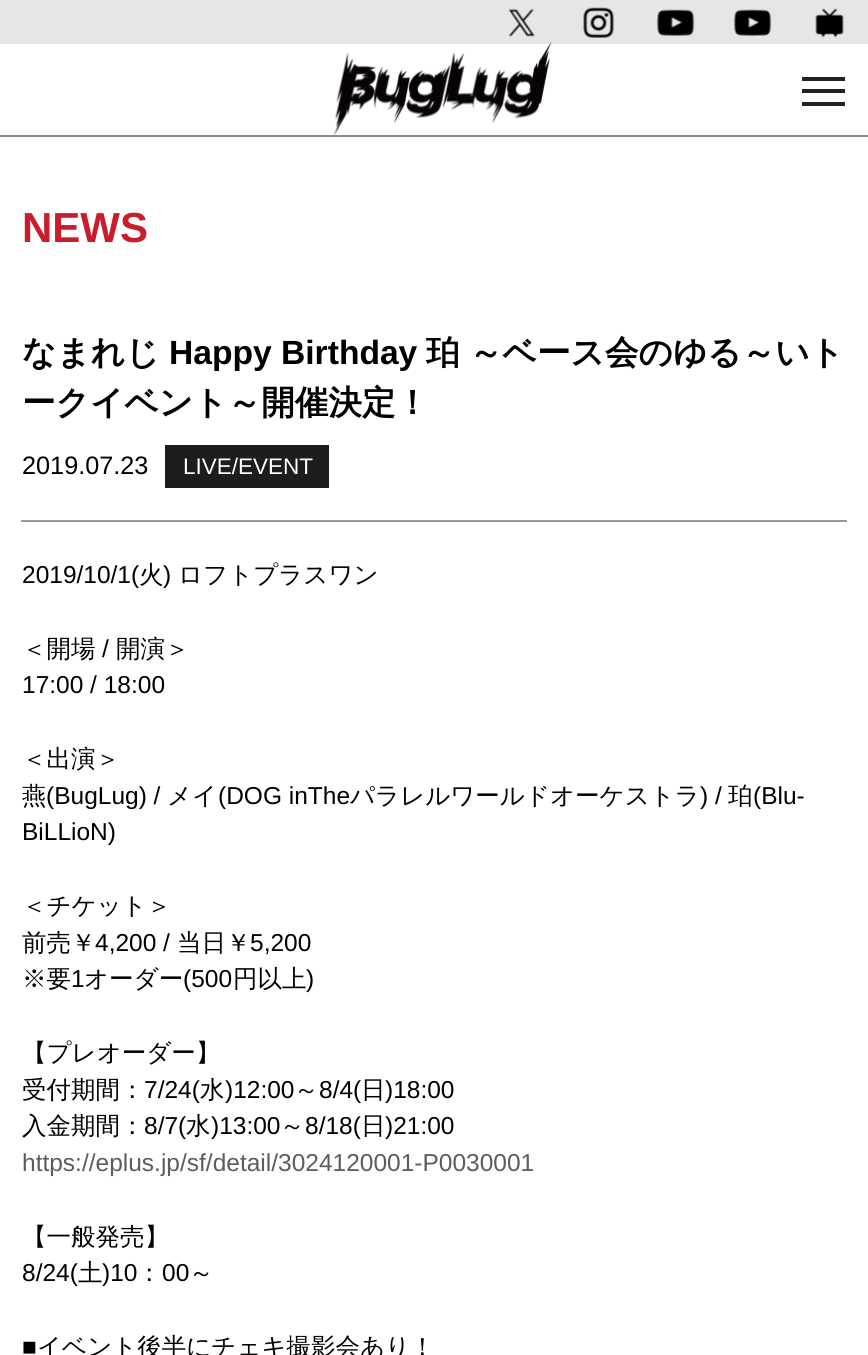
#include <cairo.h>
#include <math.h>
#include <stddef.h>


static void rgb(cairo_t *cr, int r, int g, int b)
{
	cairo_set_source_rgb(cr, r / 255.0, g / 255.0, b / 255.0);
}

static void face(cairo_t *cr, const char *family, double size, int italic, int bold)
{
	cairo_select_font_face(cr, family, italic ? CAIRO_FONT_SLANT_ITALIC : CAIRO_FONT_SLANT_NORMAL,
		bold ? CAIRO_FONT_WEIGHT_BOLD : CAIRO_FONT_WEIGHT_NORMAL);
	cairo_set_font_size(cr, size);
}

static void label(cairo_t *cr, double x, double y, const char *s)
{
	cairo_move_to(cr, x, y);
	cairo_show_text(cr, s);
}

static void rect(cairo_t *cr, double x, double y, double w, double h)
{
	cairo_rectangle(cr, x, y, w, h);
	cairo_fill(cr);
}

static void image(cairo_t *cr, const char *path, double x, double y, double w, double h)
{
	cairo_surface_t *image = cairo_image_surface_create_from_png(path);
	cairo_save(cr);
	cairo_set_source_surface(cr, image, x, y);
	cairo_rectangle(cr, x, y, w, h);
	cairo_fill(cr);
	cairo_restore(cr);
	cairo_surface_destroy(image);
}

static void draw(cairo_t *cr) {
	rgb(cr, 255, 255, 255);
	cairo_paint(cr);
	rgb(cr, 142, 142, 142);
	rect(cr, 0, 135, 868, 2);
	image(cr, "image4.png", 333, 42, 219, 93);
	cairo_set_source_rgba(cr, 0, 0, 0, 0.1);
	rect(cr, 0, 0, 868, 44);
	image(cr, "image0.png", 508, 8, 27, 29);
	image(cr, "image1.png", 583, 7, 31, 31);
	image(cr, "image2.png", 656, 9, 39, 27);
	image(cr, "image2.png", 733, 9, 39, 27);
	image(cr, "image3.png", 815, 8, 29, 30);
	rgb(cr, 34, 34, 34);
	rect(cr, 802, 89, 43, 4);
	rect(cr, 802, 77, 43, 4);
	rect(cr, 802, 102, 43, 4);
	face(cr, "Liberation Sans", 42, 0, 1);
	rgb(cr, 202, 29, 43);
	label(cr, 22, 242, "NEWS");
	rgb(cr, 153, 153, 153);
	rect(cr, 21, 520, 826, 2);
	face(cr, "WenQuanYi Zen Hei", 33.6, 0, 1);
	rgb(cr, 0, 0, 0);
	label(cr, 22, 364, "なまれじ");
	face(cr, "Liberation Sans", 33.6, 0, 1);
	label(cr, 169, 364, "Happy Birthday");
	face(cr, "WenQuanYi Zen Hei", 33.6, 0, 1);
	label(cr, 426, 364, "珀");
	label(cr, 469, 364, "～ベース会のゆる～いト");
	label(cr, 22, 414, "ークイベント～開催決定！");
	face(cr, "Liberation Sans", 25.25, 0, 0);
	label(cr, 22, 474, "2019.07.23");
	rgb(cr, 29, 29, 29);
	rect(cr, 165, 445, 164, 43);
	face(cr, "Liberation Sans", 22.5, 0, 0);
	rgb(cr, 255, 255, 255);
	label(cr, 183, 474, "LIVE/EVENT");
	face(cr, "Liberation Sans", 24.5, 0, 0);
	rgb(cr, 0, 0, 0);
	label(cr, 22, 583, "2019/10/1(");
	face(cr, "WenQuanYi Zen Hei Medium", 24.5, 0, 0);
	label(cr, 139, 583, "火");
	face(cr, "Liberation Sans", 24.5, 0, 0);
	label(cr, 163, 583, ")");
	face(cr, "WenQuanYi Zen Hei Medium", 24.5, 0, 0);
	label(cr, 178, 583, "ロフトプラスワン");
	label(cr, 22, 657, "＜開場");
	face(cr, "Liberation Sans", 24.5, 0, 0);
	label(cr, 102, 657, "/");
	face(cr, "WenQuanYi Zen Hei Medium", 24.5, 0, 0);
	label(cr, 116, 657, "開演＞");
	face(cr, "Liberation Sans", 24.5, 0, 0);
	label(cr, 22, 693, "17:00 / 18:00");
	face(cr, "WenQuanYi Zen Hei Medium", 24.5, 0, 0);
	label(cr, 22, 767, "＜出演＞");
	label(cr, 22, 804, "燕");
	face(cr, "Liberation Sans", 24.5, 0, 0);
	label(cr, 46, 804, "(BugLug) /");
	face(cr, "WenQuanYi Zen Hei Medium", 24.5, 0, 0);
	label(cr, 167, 804, "メイ");
	face(cr, "Liberation Sans", 24.5, 0, 0);
	label(cr, 218, 804, "(DOG inThe");
	face(cr, "WenQuanYi Zen Hei Medium", 24.5, 0, 0);
	label(cr, 350, 804, "パラレルワールドオーケストラ");
	face(cr, "Liberation Sans", 24.5, 0, 0);
	label(cr, 700, 804, ") /");
	face(cr, "WenQuanYi Zen Hei Medium", 24.5, 0, 0);
	label(cr, 728, 804, "珀");
	face(cr, "Liberation Sans", 24.5, 0, 0);
	label(cr, 753, 804, "(Blu-");
	label(cr, 22, 840, "BiLLioN)");
	face(cr, "WenQuanYi Zen Hei Medium", 24.5, 0, 0);
	label(cr, 22, 914, "＜チケット＞");
	label(cr, 22, 951, "前売￥");
	face(cr, "Liberation Sans", 24.5, 0, 0);
	label(cr, 95, 951, "4,200 /");
	face(cr, "WenQuanYi Zen Hei Medium", 24.5, 0, 0);
	label(cr, 177, 951, "当日￥");
	face(cr, "Liberation Sans", 24.5, 0, 0);
	label(cr, 250, 951, "5,200");
	face(cr, "WenQuanYi Zen Hei Medium", 24.5, 0, 0);
	label(cr, 22, 987, "※要");
	face(cr, "Liberation Sans", 24.5, 0, 0);
	label(cr, 71, 987, "1");
	face(cr, "WenQuanYi Zen Hei Medium", 24.5, 0, 0);
	label(cr, 84, 987, "オーダー");
	face(cr, "Liberation Sans", 24.5, 0, 0);
	label(cr, 183, 987, "(500");
	face(cr, "WenQuanYi Zen Hei Medium", 24.5, 0, 0);
	label(cr, 233, 987, "円以上");
	face(cr, "Liberation Sans", 24.5, 0, 0);
	label(cr, 306, 987, ")");
	face(cr, "WenQuanYi Zen Hei Medium", 24.5, 0, 0);
	label(cr, 22, 1061, "【プレオーダー】");
	label(cr, 22, 1098, "受付期間：");
	face(cr, "Liberation Sans", 24.5, 0, 0);
	label(cr, 144, 1098, "7/24(");
	face(cr, "WenQuanYi Zen Hei Medium", 24.5, 0, 0);
	label(cr, 200, 1098, "水");
	face(cr, "Liberation Sans", 24.5, 0, 0);
	label(cr, 225, 1098, ")12:00");
	face(cr, "WenQuanYi Zen Hei Medium", 24.5, 0, 0);
	label(cr, 294, 1098, "～");
	face(cr, "Liberation Sans", 24.5, 0, 0);
	label(cr, 319, 1098, "8/4(");
	face(cr, "WenQuanYi Zen Hei Medium", 24.5, 0, 0);
	label(cr, 361, 1098, "日");
	face(cr, "Liberation Sans", 24.5, 0, 0);
	label(cr, 385, 1098, ")18:00");
	face(cr, "WenQuanYi Zen Hei Medium", 24.5, 0, 0);
	label(cr, 22, 1134, "入金期間：");
	face(cr, "Liberation Sans", 24.5, 0, 0);
	label(cr, 144, 1134, "8/7(");
	face(cr, "WenQuanYi Zen Hei Medium", 24.5, 0, 0);
	label(cr, 186, 1134, "水");
	face(cr, "Liberation Sans", 24.5, 0, 0);
	label(cr, 211, 1134, ")13:00");
	face(cr, "WenQuanYi Zen Hei Medium", 24.5, 0, 0);
	label(cr, 280, 1134, "～");
	face(cr, "Liberation Sans", 24.5, 0, 0);
	label(cr, 305, 1134, "8/18(");
	face(cr, "WenQuanYi Zen Hei Medium", 24.5, 0, 0);
	label(cr, 361, 1134, "日");
	face(cr, "Liberation Sans", 24.5, 0, 0);
	label(cr, 385, 1134, ")21:00");
	rgb(cr, 93, 93, 93);
	label(cr, 22, 1171, "https://eplus.jp/sf/detail/3024120001-P0030001");
	face(cr, "WenQuanYi Zen Hei Medium", 24.5, 0, 0);
	rgb(cr, 0, 0, 0);
	label(cr, 22, 1245, "【一般発売】");
	face(cr, "Liberation Sans", 24.5, 0, 0);
	label(cr, 22, 1281, "8/24(");
	face(cr, "WenQuanYi Zen Hei Medium", 24.5, 0, 0);
	label(cr, 78, 1281, "土");
	face(cr, "Liberation Sans", 24.5, 0, 0);
	label(cr, 102, 1281, ")10");
	face(cr, "WenQuanYi Zen Hei Medium", 24.5, 0, 0);
	label(cr, 137, 1281, "：");
	face(cr, "Liberation Sans", 24.5, 0, 0);
	label(cr, 162, 1281, "00");
	face(cr, "WenQuanYi Zen Hei Medium", 24.5, 0, 0);
	label(cr, 189, 1281, "～");
	face(cr, "Liberation Sans", 24.5, 0, 0);
	label(cr, 22, 1355, "■");
	face(cr, "WenQuanYi Zen Hei Medium", 24.5, 0, 0);
	label(cr, 37, 1355, "イベント後半にチェキ撮影会あり！");
}

int main(void) {
	cairo_surface_t *surface = cairo_image_surface_create(CAIRO_FORMAT_RGB24, 868, 1355);
	cairo_t *cr = cairo_create(surface);
	cairo_font_options_t *options = cairo_font_options_create();
	cairo_font_options_set_hint_metrics(options, CAIRO_HINT_METRICS_OFF);
	cairo_font_options_set_hint_style(options, CAIRO_HINT_STYLE_NONE);
	cairo_set_font_options(cr, options);
	cairo_set_miter_limit(cr, 4);
	draw(cr);
	cairo_surface_write_to_png(surface, "render.png");
	cairo_font_options_destroy(options);
	cairo_destroy(cr);
	cairo_surface_destroy(surface);
	return 0;
}
